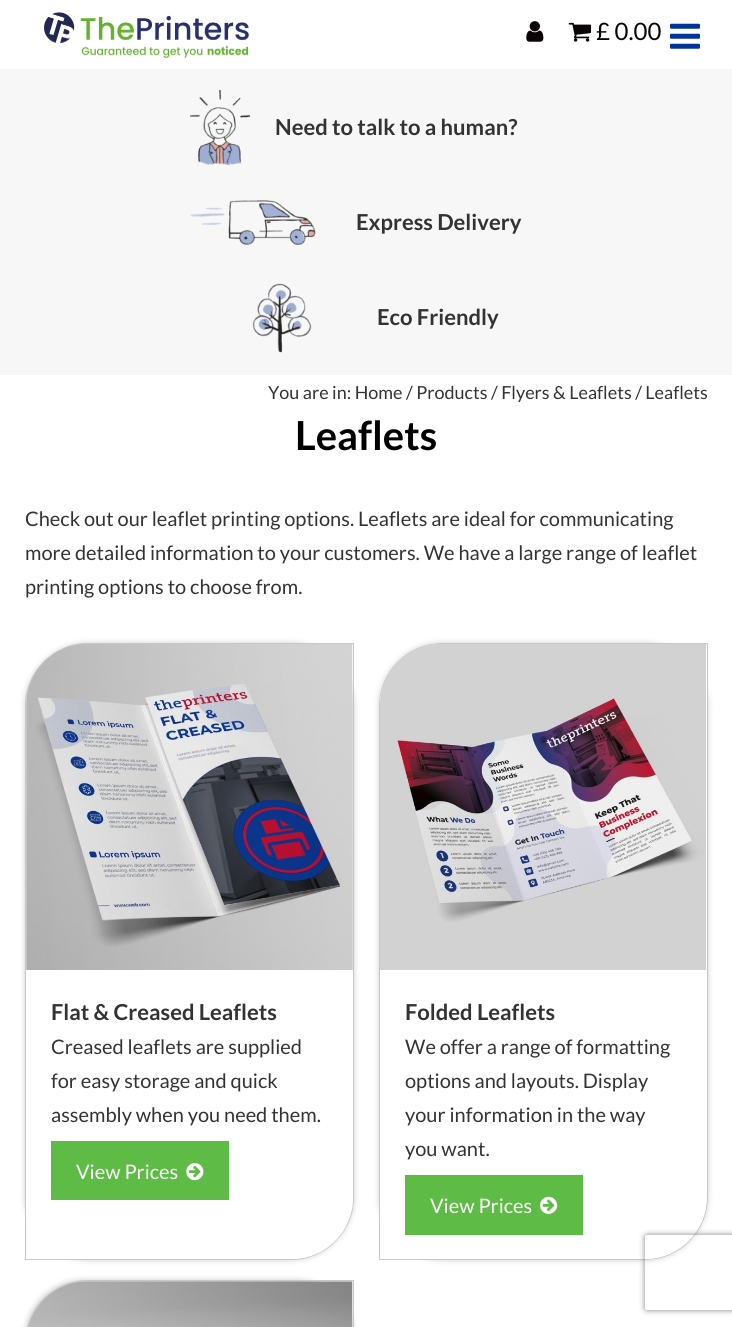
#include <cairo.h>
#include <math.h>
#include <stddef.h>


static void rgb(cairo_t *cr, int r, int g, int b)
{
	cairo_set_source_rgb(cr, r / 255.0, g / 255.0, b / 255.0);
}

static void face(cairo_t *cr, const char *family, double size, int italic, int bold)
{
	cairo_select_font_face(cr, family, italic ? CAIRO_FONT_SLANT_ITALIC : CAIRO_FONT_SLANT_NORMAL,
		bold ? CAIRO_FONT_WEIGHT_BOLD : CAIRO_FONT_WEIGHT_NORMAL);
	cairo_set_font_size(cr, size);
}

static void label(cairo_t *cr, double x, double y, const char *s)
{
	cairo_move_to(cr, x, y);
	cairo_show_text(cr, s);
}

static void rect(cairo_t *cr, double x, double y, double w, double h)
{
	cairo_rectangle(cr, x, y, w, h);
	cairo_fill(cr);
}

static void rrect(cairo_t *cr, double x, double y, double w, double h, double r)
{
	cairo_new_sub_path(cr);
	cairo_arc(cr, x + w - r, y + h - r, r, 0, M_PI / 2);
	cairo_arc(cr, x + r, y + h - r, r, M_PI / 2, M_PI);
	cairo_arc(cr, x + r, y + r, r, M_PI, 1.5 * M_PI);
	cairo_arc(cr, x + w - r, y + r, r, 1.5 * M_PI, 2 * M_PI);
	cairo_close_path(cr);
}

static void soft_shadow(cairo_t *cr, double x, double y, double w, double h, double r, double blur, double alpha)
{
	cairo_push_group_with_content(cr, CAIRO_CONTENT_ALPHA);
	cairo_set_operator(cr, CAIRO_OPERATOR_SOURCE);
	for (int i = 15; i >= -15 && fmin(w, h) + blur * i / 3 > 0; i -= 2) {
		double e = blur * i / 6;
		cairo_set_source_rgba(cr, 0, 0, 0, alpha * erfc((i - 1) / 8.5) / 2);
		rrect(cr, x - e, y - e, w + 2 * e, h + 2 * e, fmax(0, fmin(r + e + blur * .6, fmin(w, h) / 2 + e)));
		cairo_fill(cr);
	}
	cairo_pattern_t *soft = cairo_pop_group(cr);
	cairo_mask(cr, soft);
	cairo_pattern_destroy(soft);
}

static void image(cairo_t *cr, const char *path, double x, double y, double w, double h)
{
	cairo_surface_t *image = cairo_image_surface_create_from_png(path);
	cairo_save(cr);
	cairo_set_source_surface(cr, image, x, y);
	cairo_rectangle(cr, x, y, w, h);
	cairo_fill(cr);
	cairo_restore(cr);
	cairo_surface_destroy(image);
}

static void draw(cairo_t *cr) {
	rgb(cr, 247, 247, 247);
	cairo_paint(cr);
	rgb(cr, 255, 255, 255);
	rect(cr, 0, 0, 732, 69);
	image(cr, "image0.png", 44, 12, 205, 46);
	image(cr, "image1.png", 526, 21, 18, 21);
	image(cr, "image2.png", 568, 22, 24, 20);
	face(cr, "Lato", 24, 0, 0);
	rgb(cr, 10, 5, 4);
	label(cr, 596, 40, "£ 0.00");
	image(cr, "image3.png", 670, 23, 30, 26);
	image(cr, "image4.png", 190, 90, 60, 75);
	face(cr, "Lato", 22, 0, 1);
	rgb(cr, 51, 51, 51);
	label(cr, 275, 135, "Need to talk to a human?");
	image(cr, "image5.png", 190, 200, 126, 45);
	label(cr, 356, 230, "Express Delivery");
	image(cr, "image6.png", 252, 283, 60, 70);
	label(cr, 377, 325, "Eco Friendly");
	rgb(cr, 255, 255, 255);
	rect(cr, 0, 375, 732, 952);
	face(cr, "Lato", 18, 0, 0);
	rgb(cr, 51, 51, 51);
	label(cr, 268, 399, "You are in: Home / Products / Flyers & Leaflets / Leaflets");
	face(cr, "Lato", 40, 0, 1);
	rgb(cr, 0, 0, 0);
	label(cr, 295, 450, "Leaflets");
	face(cr, "Lato", 20, 0, 0);
	rgb(cr, 51, 51, 51);
	label(cr, 25, 526, "Check out our leaflet printing options. Leaflets are ideal for communicating");
	label(cr, 25, 560, "more detailed information to your customers. We have a large range of leaflet");
	label(cr, 25, 594, "printing options to choose from.");
	rgb(cr, 0, 0, 0);
	soft_shadow(cr, 25, 643, 329, 617, 63, 3, 0.2);
	cairo_new_path(cr);
	cairo_move_to(cr, 88, 643.5);
	cairo_line_to(cr, 353.5, 643.5);
	cairo_line_to(cr, 353.5, 1197);
	cairo_curve_to(cr, 353.5, 1231.5, 325.5, 1259.5, 291, 1259.5);
	cairo_line_to(cr, 25.5, 1259.5);
	cairo_line_to(cr, 25.5, 706);
	cairo_curve_to(cr, 25.5, 671.5, 53.5, 643.5, 88, 643.5);
	cairo_close_path(cr);
	rgb(cr, 199, 199, 199);
	cairo_set_line_width(cr, 1);
	cairo_stroke(cr);
	image(cr, "image7.png", 26, 644, 327, 326);
	rgb(cr, 255, 255, 255);
	cairo_new_path(cr);
	cairo_move_to(cr, 26, 970);
	cairo_line_to(cr, 353, 970);
	cairo_line_to(cr, 353, 1198);
	cairo_curve_to(cr, 353, 1231.5, 325.5, 1259, 292, 1259);
	cairo_line_to(cr, 26, 1259);
	cairo_close_path(cr);
	cairo_fill(cr);
	face(cr, "Lato", 22, 0, 1);
	rgb(cr, 51, 51, 51);
	label(cr, 51, 1020, "Flat & Creased Leaflets");
	face(cr, "Lato", 20, 0, 0);
	label(cr, 51, 1054, "Creased leaflets are supplied");
	label(cr, 51, 1088, "for easy storage and quick");
	label(cr, 51, 1122, "assembly when you need them.");
	rgb(cr, 94, 187, 70);
	rect(cr, 51, 1141, 178, 59);
	rgb(cr, 255, 255, 255);
	label(cr, 76, 1179, "View Prices");
	image(cr, "image8.png", 186, 1163, 18, 18);
	cairo_save(cr);
	cairo_set_fill_rule(cr, CAIRO_FILL_RULE_EVEN_ODD);
	cairo_new_path(cr);
	cairo_move_to(cr, 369, 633);
	cairo_line_to(cr, 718, 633);
	cairo_line_to(cr, 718, 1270);
	cairo_line_to(cr, 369, 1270);
	cairo_close_path(cr);
	cairo_move_to(cr, 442, 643);
	cairo_line_to(cr, 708, 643);
	cairo_line_to(cr, 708, 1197);
	cairo_curve_to(cr, 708, 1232, 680, 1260, 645, 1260);
	cairo_line_to(cr, 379, 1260);
	cairo_line_to(cr, 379, 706);
	cairo_curve_to(cr, 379, 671, 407, 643, 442, 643);
	cairo_close_path(cr);
	cairo_clip(cr);
	rgb(cr, 0, 0, 0);
	soft_shadow(cr, 379, 643, 329, 617, 63, 3, 0.2);
	cairo_restore(cr);
	cairo_new_path(cr);
	cairo_move_to(cr, 442, 643.5);
	cairo_line_to(cr, 707.5, 643.5);
	cairo_line_to(cr, 707.5, 1197);
	cairo_curve_to(cr, 707.5, 1231.5, 679.5, 1259.5, 645, 1259.5);
	cairo_line_to(cr, 379.5, 1259.5);
	cairo_line_to(cr, 379.5, 706);
	cairo_curve_to(cr, 379.5, 671.5, 407.5, 643.5, 442, 643.5);
	cairo_close_path(cr);
	rgb(cr, 199, 199, 199);
	cairo_stroke(cr);
	image(cr, "image9.png", 380, 644, 326, 326);
	rgb(cr, 255, 255, 255);
	cairo_new_path(cr);
	cairo_move_to(cr, 380, 970);
	cairo_line_to(cr, 706, 970);
	cairo_line_to(cr, 706, 1198);
	cairo_curve_to(cr, 706, 1231.5, 678.5, 1259, 645, 1259);
	cairo_line_to(cr, 380, 1259);
	cairo_close_path(cr);
	cairo_fill(cr);
	face(cr, "Lato", 22, 0, 1);
	rgb(cr, 51, 51, 51);
	label(cr, 405, 1020, "Folded Leaflets");
	face(cr, "Lato", 20, 0, 0);
	label(cr, 405, 1054, "We offer a range of formatting");
	label(cr, 405, 1088, "options and layouts. Display");
	label(cr, 405, 1122, "your information in the way");
	label(cr, 405, 1156, "you want.");
	rgb(cr, 94, 187, 70);
	rect(cr, 405, 1175, 178, 60);
	rgb(cr, 255, 255, 255);
	label(cr, 430, 1213, "View Prices");
	image(cr, "image10.png", 540, 1196, 18, 18);
	rgb(cr, 0, 0, 0);
	soft_shadow(cr, 25, 1280, 329, 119, 63, 3, 0.2);
	cairo_new_path(cr);
	cairo_move_to(cr, 88, 1280.5);
	cairo_line_to(cr, 353.5, 1280.5);
	cairo_line_to(cr, 353.5, 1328);
	cairo_curve_to(cr, 353.5, 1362.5, 325.5, 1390.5, 291, 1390.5);
	cairo_line_to(cr, 25.5, 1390.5);
	cairo_line_to(cr, 25.5, 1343);
	cairo_curve_to(cr, 25.5, 1308.5, 53.5, 1280.5, 88, 1280.5);
	cairo_close_path(cr);
	rgb(cr, 199, 199, 199);
	cairo_stroke(cr);
	image(cr, "image11.png", 28, 1281, 325, 46);
	cairo_save(cr);
	cairo_set_fill_rule(cr, CAIRO_FILL_RULE_EVEN_ODD);
	cairo_new_path(cr);
	cairo_move_to(cr, 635, 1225);
	cairo_line_to(cr, 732, 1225);
	cairo_line_to(cr, 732, 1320);
	cairo_line_to(cr, 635, 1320);
	cairo_close_path(cr);
	cairo_move_to(cr, 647.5, 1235);
	cairo_line_to(cr, 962.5, 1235);
	cairo_curve_to(cr, 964, 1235, 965, 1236, 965, 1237.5);
	cairo_line_to(cr, 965, 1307.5);
	cairo_curve_to(cr, 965, 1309, 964, 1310, 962.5, 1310);
	cairo_line_to(cr, 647.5, 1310);
	cairo_curve_to(cr, 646, 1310, 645, 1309, 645, 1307.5);
	cairo_line_to(cr, 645, 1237.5);
	cairo_curve_to(cr, 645, 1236, 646, 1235, 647.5, 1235);
	cairo_close_path(cr);
	cairo_clip(cr);
	rgb(cr, 128, 128, 128);
	soft_shadow(cr, 645, 1235, 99, 75, 2.5, 3, 1);
	cairo_restore(cr);
}

int main(void) {
	cairo_surface_t *surface = cairo_image_surface_create(CAIRO_FORMAT_RGB24, 732, 1327);
	cairo_t *cr = cairo_create(surface);
	cairo_font_options_t *options = cairo_font_options_create();
	cairo_font_options_set_hint_metrics(options, CAIRO_HINT_METRICS_OFF);
	cairo_font_options_set_hint_style(options, CAIRO_HINT_STYLE_NONE);
	cairo_set_font_options(cr, options);
	cairo_set_miter_limit(cr, 4);
	draw(cr);
	cairo_surface_write_to_png(surface, "render.png");
	cairo_font_options_destroy(options);
	cairo_destroy(cr);
	cairo_surface_destroy(surface);
	return 0;
}
